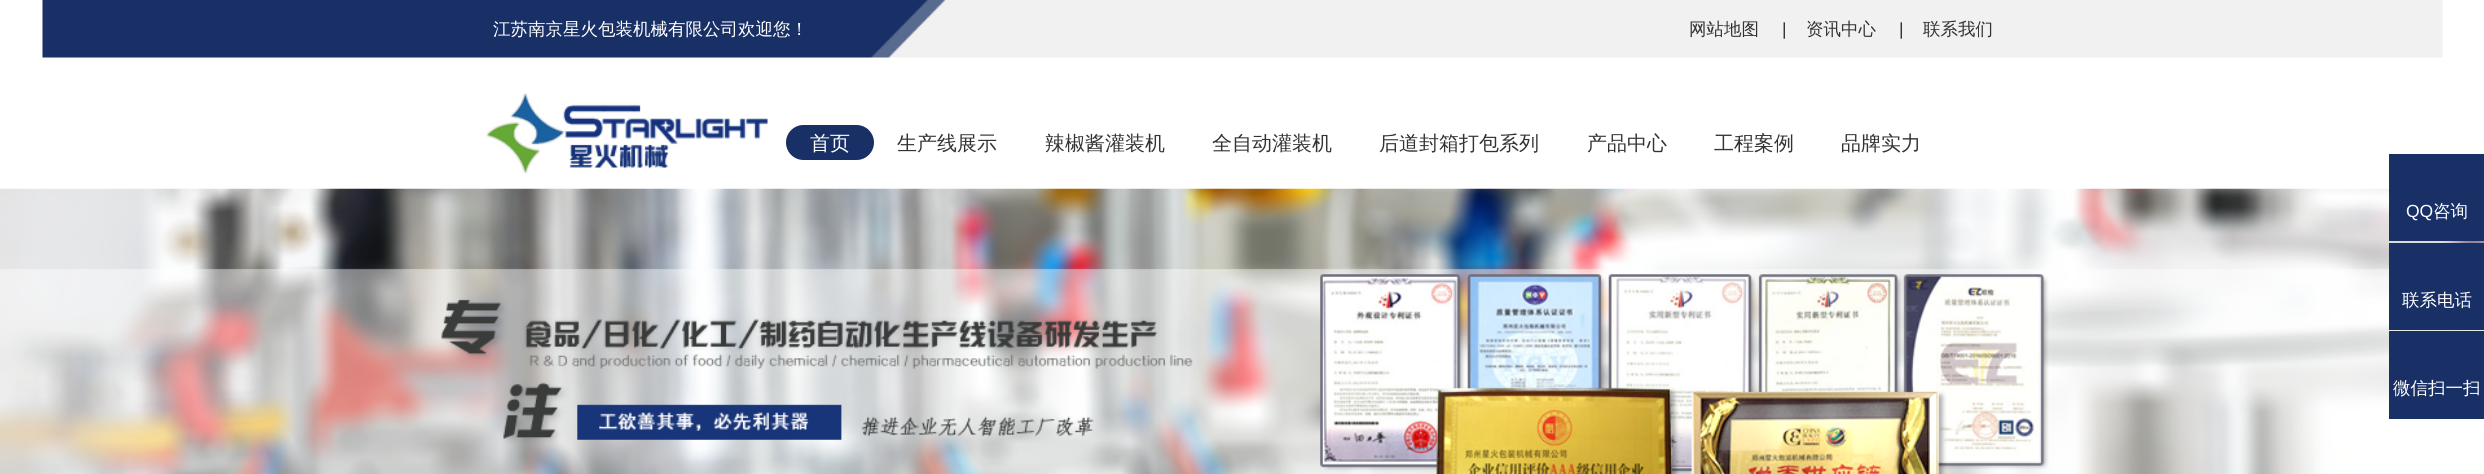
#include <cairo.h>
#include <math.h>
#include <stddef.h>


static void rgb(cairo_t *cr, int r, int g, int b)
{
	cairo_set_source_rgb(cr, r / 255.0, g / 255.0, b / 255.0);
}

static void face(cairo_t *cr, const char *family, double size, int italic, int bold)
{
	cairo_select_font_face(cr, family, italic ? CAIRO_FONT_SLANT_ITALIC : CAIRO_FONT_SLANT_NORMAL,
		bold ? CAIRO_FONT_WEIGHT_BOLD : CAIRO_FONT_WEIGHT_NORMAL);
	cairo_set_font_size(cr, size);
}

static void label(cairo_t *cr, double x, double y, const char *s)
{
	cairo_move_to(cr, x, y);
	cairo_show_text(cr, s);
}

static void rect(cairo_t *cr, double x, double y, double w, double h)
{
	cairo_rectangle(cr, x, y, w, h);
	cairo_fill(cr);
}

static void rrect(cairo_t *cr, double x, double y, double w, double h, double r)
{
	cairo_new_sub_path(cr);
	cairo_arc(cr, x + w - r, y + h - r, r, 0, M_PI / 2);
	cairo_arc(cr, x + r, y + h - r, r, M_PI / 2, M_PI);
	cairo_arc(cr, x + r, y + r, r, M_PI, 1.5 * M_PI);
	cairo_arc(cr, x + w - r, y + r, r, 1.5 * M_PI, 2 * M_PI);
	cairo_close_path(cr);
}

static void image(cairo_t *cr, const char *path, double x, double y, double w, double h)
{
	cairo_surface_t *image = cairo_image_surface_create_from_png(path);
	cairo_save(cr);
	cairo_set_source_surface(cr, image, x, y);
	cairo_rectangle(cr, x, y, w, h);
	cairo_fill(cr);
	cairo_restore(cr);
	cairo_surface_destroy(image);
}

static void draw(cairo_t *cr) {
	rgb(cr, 255, 255, 255);
	cairo_paint(cr);
	image(cr, "image0.png", 42, 0, 2401, 58);
	face(cr, "WenQuanYi Zen Hei Medium", 17.5, 0, 0);
	rgb(cr, 255, 255, 255);
	label(cr, 493, 35, "江苏南京星火包装机械有限公司欢迎您！");
	rgb(cr, 51, 51, 51);
	label(cr, 1689, 35, "网站地图");
	face(cr, "Liberation Sans", 17.5, 0, 0);
	label(cr, 1782, 35, "|");
	face(cr, "WenQuanYi Zen Hei Medium", 17.5, 0, 0);
	label(cr, 1806, 35, "资讯中心");
	face(cr, "Liberation Sans", 17.5, 0, 0);
	label(cr, 1899, 35, "|");
	face(cr, "WenQuanYi Zen Hei Medium", 17.5, 0, 0);
	label(cr, 1923, 35, "联系我们");
	image(cr, "image1.png", 484, 93, 284, 81);
	rgb(cr, 25, 48, 102);
	rrect(cr, 786, 125, 88, 35, 17.5);
	cairo_fill(cr);
	face(cr, "WenQuanYi Zen Hei Medium", 20, 0, 0);
	rgb(cr, 255, 255, 255);
	label(cr, 810, 150, "首页");
	rgb(cr, 51, 51, 51);
	label(cr, 897, 150, "生产线展示");
	label(cr, 1045, 150, "辣椒酱灌装机");
	label(cr, 1212, 150, "全自动灌装机");
	label(cr, 1379, 150, "后道封箱打包系列");
	label(cr, 1587, 150, "产品中心");
	label(cr, 1714, 150, "工程案例");
	label(cr, 1841, 150, "品牌实力");
	image(cr, "image2.png", 0, 188, 2484, 286);
	rgb(cr, 25, 48, 102);
	rect(cr, 2389, 154, 95, 87);
	face(cr, "Liberation Sans", 17.5, 0, 0);
	rgb(cr, 255, 255, 255);
	label(cr, 2406, 217, "QQ");
	face(cr, "WenQuanYi Zen Hei Medium", 17.5, 0, 0);
	label(cr, 2433, 217, "咨询");
	rgb(cr, 25, 48, 102);
	rect(cr, 2389, 243, 95, 87);
	rgb(cr, 255, 255, 255);
	label(cr, 2402, 306, "联系电话");
	rgb(cr, 25, 48, 102);
	rect(cr, 2389, 331, 95, 88);
	rgb(cr, 255, 255, 255);
	label(cr, 2393, 394, "微信扫一扫");
}

int main(void) {
	cairo_surface_t *surface = cairo_image_surface_create(CAIRO_FORMAT_RGB24, 2484, 474);
	cairo_t *cr = cairo_create(surface);
	cairo_font_options_t *options = cairo_font_options_create();
	cairo_font_options_set_hint_metrics(options, CAIRO_HINT_METRICS_OFF);
	cairo_font_options_set_hint_style(options, CAIRO_HINT_STYLE_NONE);
	cairo_set_font_options(cr, options);
	cairo_set_miter_limit(cr, 4);
	draw(cr);
	cairo_surface_write_to_png(surface, "render.png");
	cairo_font_options_destroy(options);
	cairo_destroy(cr);
	cairo_surface_destroy(surface);
	return 0;
}
